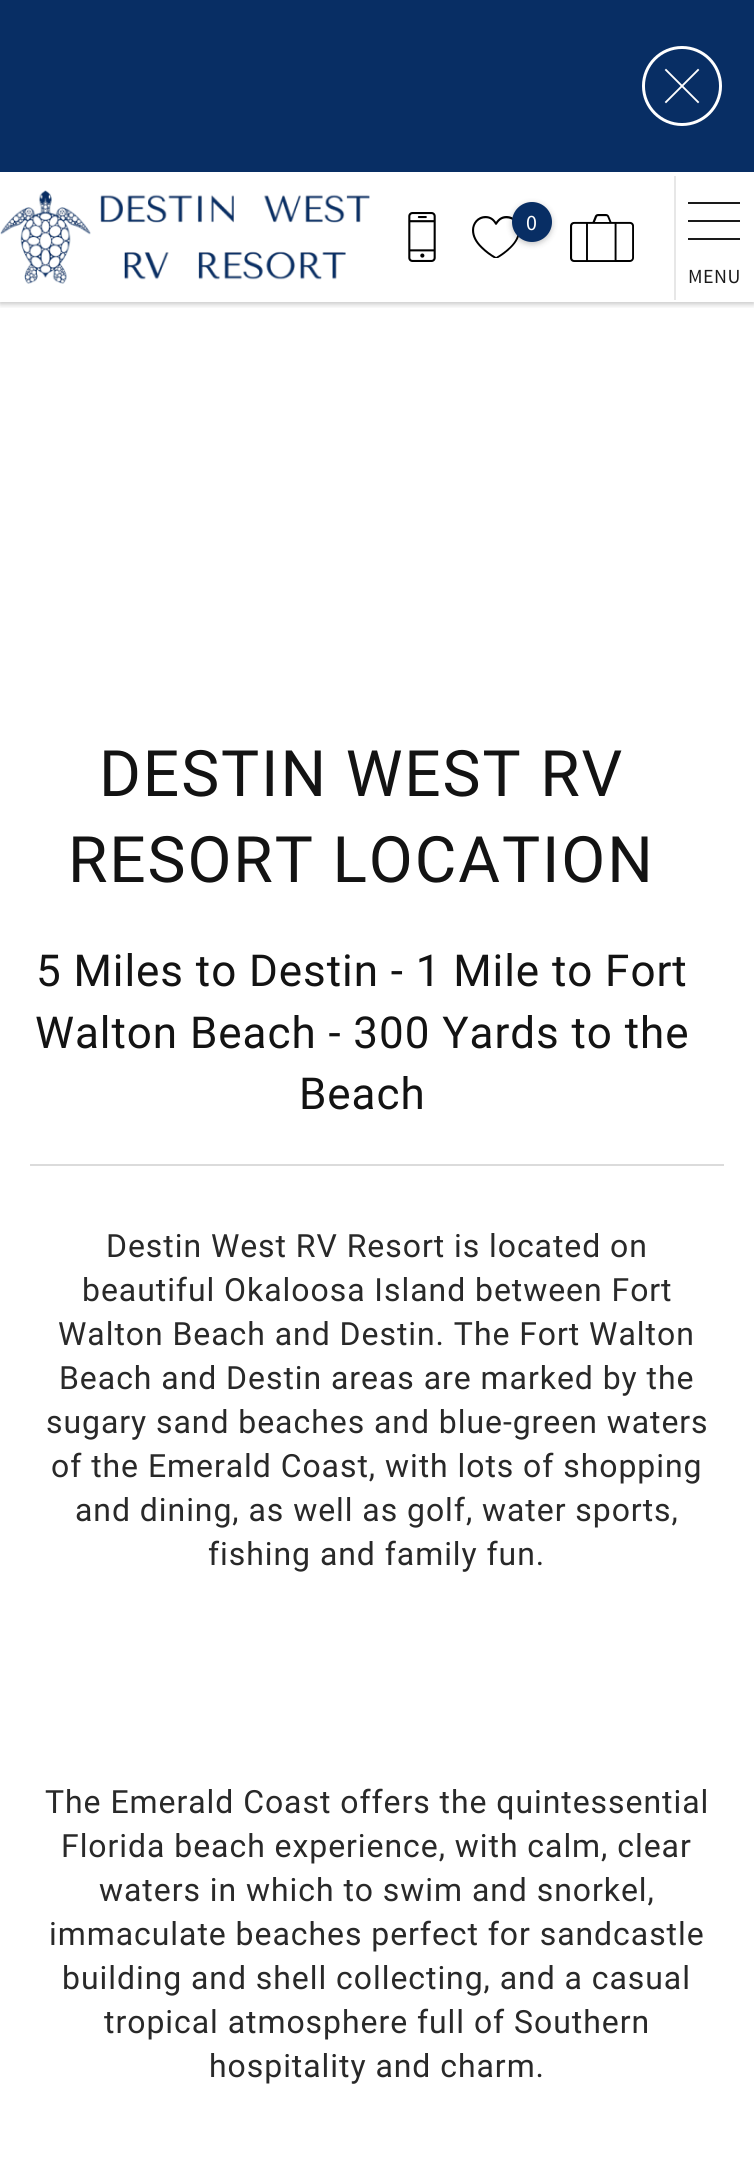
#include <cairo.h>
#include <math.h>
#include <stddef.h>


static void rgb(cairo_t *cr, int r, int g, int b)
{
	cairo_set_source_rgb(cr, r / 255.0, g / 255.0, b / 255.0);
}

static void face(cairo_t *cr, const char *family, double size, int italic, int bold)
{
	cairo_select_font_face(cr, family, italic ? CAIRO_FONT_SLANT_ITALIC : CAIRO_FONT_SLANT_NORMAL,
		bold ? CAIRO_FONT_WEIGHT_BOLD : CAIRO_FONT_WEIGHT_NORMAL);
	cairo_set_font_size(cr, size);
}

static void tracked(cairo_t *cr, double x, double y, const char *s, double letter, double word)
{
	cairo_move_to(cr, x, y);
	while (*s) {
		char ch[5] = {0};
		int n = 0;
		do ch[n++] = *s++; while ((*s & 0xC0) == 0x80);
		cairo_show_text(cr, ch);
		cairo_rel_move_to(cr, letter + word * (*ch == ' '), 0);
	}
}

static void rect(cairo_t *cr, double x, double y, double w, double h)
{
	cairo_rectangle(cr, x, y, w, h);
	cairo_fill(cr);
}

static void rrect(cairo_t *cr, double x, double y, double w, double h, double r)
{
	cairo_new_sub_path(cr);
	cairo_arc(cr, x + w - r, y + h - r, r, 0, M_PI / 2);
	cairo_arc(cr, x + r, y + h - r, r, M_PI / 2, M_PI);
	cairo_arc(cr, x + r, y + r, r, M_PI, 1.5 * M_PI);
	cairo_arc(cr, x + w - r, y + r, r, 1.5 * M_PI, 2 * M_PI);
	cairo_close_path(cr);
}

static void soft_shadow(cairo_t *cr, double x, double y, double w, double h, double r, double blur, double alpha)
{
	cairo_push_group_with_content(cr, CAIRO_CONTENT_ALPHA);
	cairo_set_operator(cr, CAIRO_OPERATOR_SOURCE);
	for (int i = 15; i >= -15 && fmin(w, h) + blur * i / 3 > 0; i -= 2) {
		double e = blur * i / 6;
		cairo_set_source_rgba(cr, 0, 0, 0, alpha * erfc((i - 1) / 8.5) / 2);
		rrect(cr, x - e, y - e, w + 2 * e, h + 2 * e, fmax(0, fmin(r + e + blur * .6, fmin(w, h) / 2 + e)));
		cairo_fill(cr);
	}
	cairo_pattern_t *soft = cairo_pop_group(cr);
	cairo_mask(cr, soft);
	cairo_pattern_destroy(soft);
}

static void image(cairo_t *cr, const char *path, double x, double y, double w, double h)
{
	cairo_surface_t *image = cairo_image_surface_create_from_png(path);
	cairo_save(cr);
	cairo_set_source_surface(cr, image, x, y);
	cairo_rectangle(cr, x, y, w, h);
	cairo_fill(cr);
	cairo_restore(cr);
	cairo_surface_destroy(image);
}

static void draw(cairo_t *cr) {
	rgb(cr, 255, 255, 255);
	cairo_paint(cr);
	cairo_save(cr);
	cairo_rectangle(cr, 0, 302, 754, 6);
	cairo_clip(cr);
	rgb(cr, 17, 17, 17);
	soft_shadow(cr, 0, 174, 754, 130, 0, 3, 0.25);
	cairo_restore(cr);
	rgb(cr, 8, 46, 100);
	rect(cr, 0, 0, 754, 172);
	image(cr, "image0.png", 642, 46, 80, 80);
	image(cr, "image1.png", 0, 190, 370, 94);
	image(cr, "image2.png", 408, 212, 28, 50);
	image(cr, "image3.png", 472, 216, 47, 42);
	rgb(cr, 17, 17, 17);
	soft_shadow(cr, 512, 204, 40, 40, 20, 3, 0.25);
	rgb(cr, 8, 46, 100);
	cairo_arc(cr, 532, 222, 20, 0, 2 * M_PI);
	cairo_fill(cr);
	face(cr, "Source Sans Pro", 22, 0, 0);
	rgb(cr, 255, 255, 255);
	tracked(cr, 526, 230, "0", 0.95, 0);
	image(cr, "image4.png", 570, 214, 64, 48);
	rgb(cr, 231, 231, 231);
	rect(cr, 674, 176, 2, 124);
	rgb(cr, 26, 26, 26);
	rect(cr, 688, 220, 52, 2);
	rect(cr, 688, 202, 52, 2);
	rect(cr, 688, 238, 52, 2);
	face(cr, "Source Sans Pro", 20, 0, 0);
	tracked(cr, 688, 283, "MENU", 0.5, 0);
	face(cr, "Roboto", 64, 0, 0);
	rgb(cr, 19, 19, 19);
	tracked(cr, 99, 796, "DESTIN WEST RV", 1.9, 0);
	tracked(cr, 68, 882, "RESORT LOCATION", 1.9, 0);
	face(cr, "Roboto", 44, 0, 0);
	tracked(cr, 36, 986, "5 Miles to Destin - 1 Mile to Fort", 0.95, 0);
	tracked(cr, 35, 1048, "Walton Beach - 300 Yards to the", 0.95, 0);
	tracked(cr, 299, 1109, "Beach", 0.95, 0);
	rgb(cr, 219, 219, 219);
	rect(cr, 30, 1164, 694, 2);
	face(cr, "Roboto", 32, 0, 0);
	rgb(cr, 41, 41, 41);
	tracked(cr, 106, 1257, "Destin West RV Resort is located on", 0.95, 0);
	tracked(cr, 82, 1301, "beautiful Okaloosa Island between Fort", 0.95, 0);
	tracked(cr, 58, 1345, "Walton Beach and Destin. The Fort Walton", 0.95, 0);
	tracked(cr, 59, 1389, "Beach and Destin areas are marked by the", 0.95, 0);
	tracked(cr, 46, 1433, "sugary sand beaches and blue-green waters", 0.95, 0);
	tracked(cr, 51, 1477, "of the Emerald Coast, with lots of shopping", 0.95, 0);
	tracked(cr, 75, 1521, "and dining, as well as golf, water sports,", 0.95, 0);
	tracked(cr, 208, 1565, "fishing and family fun.", 0.95, 0);
	tracked(cr, 45, 1813, "The Emerald Coast offers the quintessential", 0.95, 0);
	tracked(cr, 61, 1857, "Florida beach experience, with calm, clear", 0.95, 0);
	tracked(cr, 99, 1901, "waters in which to swim and snorkel,", 0.95, 0);
	tracked(cr, 49, 1945, "immaculate beaches perfect for sandcastle", 0.95, 0);
	tracked(cr, 62, 1989, "building and shell collecting, and a casual", 0.95, 0);
	tracked(cr, 104, 2033, "tropical atmosphere full of Southern", 0.95, 0);
	tracked(cr, 209, 2077, "hospitality and charm.", 0.95, 0);
}

int main(void) {
	cairo_surface_t *surface = cairo_image_surface_create(CAIRO_FORMAT_RGB24, 754, 2180);
	cairo_t *cr = cairo_create(surface);
	cairo_font_options_t *options = cairo_font_options_create();
	cairo_font_options_set_hint_metrics(options, CAIRO_HINT_METRICS_OFF);
	cairo_font_options_set_hint_style(options, CAIRO_HINT_STYLE_NONE);
	cairo_set_font_options(cr, options);
	cairo_set_miter_limit(cr, 4);
	draw(cr);
	cairo_surface_write_to_png(surface, "render.png");
	cairo_font_options_destroy(options);
	cairo_destroy(cr);
	cairo_surface_destroy(surface);
	return 0;
}
